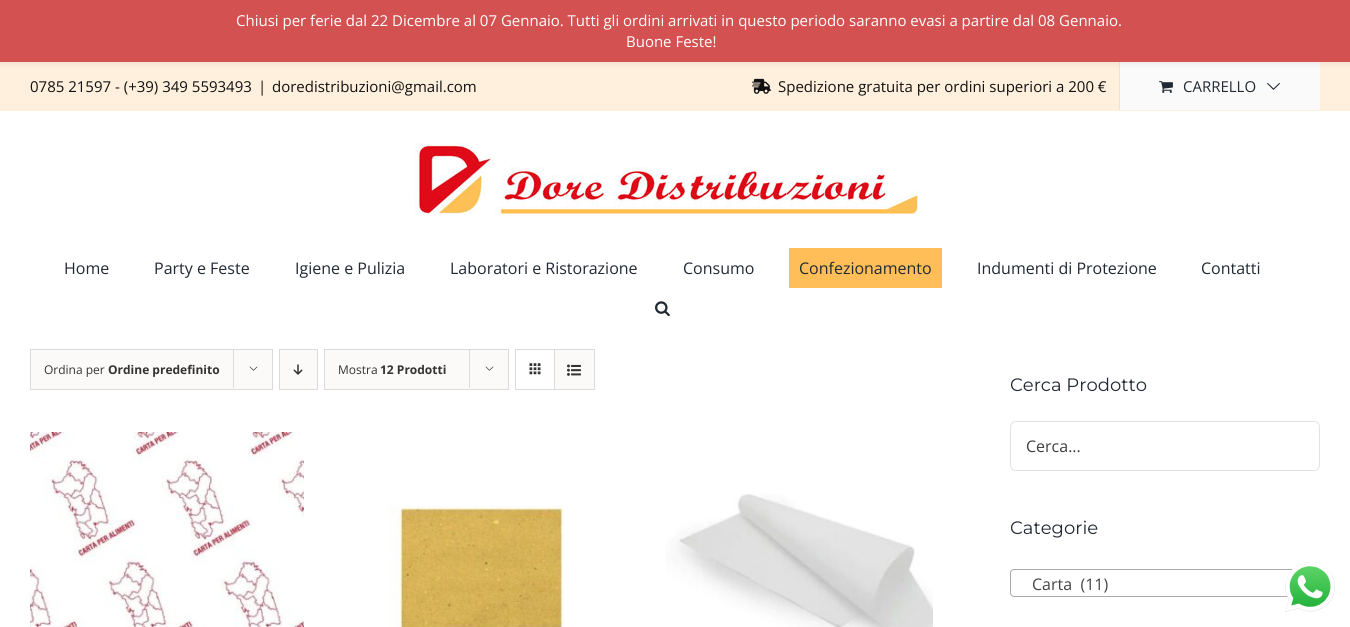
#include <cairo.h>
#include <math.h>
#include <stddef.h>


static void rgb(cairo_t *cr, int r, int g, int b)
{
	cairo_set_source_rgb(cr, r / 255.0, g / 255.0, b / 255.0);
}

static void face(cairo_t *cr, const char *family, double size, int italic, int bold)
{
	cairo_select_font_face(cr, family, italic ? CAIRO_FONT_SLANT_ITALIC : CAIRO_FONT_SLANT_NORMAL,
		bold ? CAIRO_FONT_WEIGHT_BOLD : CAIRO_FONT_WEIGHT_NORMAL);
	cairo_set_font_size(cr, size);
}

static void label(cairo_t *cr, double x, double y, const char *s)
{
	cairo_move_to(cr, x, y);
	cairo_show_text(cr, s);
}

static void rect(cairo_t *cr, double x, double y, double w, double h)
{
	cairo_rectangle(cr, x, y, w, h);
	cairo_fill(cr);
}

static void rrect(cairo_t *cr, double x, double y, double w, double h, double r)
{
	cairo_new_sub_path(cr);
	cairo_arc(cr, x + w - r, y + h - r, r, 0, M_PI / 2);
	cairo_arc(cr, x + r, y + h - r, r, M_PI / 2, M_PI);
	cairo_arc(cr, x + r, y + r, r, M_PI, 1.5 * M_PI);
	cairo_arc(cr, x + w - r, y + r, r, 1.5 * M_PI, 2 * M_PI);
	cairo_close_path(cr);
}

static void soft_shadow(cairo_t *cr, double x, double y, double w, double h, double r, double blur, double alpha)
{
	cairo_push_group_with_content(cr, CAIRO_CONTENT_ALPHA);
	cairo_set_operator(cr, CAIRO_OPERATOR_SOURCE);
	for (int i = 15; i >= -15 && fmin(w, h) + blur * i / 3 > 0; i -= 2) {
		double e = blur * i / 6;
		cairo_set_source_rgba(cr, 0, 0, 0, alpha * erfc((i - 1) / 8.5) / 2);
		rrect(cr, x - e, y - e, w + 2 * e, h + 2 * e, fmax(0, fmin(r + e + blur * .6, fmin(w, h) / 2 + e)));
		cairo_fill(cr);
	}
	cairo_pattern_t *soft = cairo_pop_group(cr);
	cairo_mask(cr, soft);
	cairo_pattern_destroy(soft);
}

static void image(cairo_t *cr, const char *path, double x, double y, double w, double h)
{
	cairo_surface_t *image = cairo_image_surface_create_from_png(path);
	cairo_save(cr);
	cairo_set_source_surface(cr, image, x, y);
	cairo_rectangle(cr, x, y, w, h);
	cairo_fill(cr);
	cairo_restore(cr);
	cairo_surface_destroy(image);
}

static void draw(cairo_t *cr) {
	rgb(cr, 255, 255, 255);
	cairo_paint(cr);
	rgb(cr, 255, 240, 221);
	rect(cr, 0, 62, 1350, 49);
	rgb(cr, 240, 226, 208);
	rect(cr, 1119, 62, 1, 48);
	rgb(cr, 250, 250, 250);
	rect(cr, 1120, 62, 200, 48);
	rgb(cr, 0, 0, 0);
	soft_shadow(cr, 0, 3, 1350, 62, 0, 2, 0.05);
	rgb(cr, 211, 81, 81);
	rect(cr, 0, 0, 1350, 62);
	face(cr, "Open Sans", 15, 0, 0);
	rgb(cr, 255, 255, 255);
	label(cr, 236, 26, "Chiusi per ferie dal 22 Dicembre al 07 Gennaio. Tutti gli ordini arrivati in questo periodo saranno evasi a partire dal 08 Gennaio.");
	label(cr, 626, 47, "Buone Feste!");
	rrect(cr, 1010.5, 569.5, 309, 27, 3.5);
	rgb(cr, 170, 170, 170);
	cairo_set_line_width(cr, 1);
	cairo_stroke(cr);
	image(cr, "image0.png", 1285, 562, 50, 50);
	rgb(cr, 17, 17, 17);
	label(cr, 30, 92, "0785 21597 - (+39) 349 5593493");
	label(cr, 258, 92, "|");
	label(cr, 272, 92, "doredistribuzioni@gmail.com");
	image(cr, "image1.png", 752, 78, 19, 16);
	label(cr, 778, 92, "Spedizione gratuita per ordini superiori a 200 €");
	image(cr, "image2.png", 1159, 81, 14, 12);
	rgb(cr, 33, 41, 52);
	label(cr, 1183, 92, "CARRELLO");
	image(cr, "image3.png", 1267, 83, 13, 7);
	image(cr, "image4.png", 414, 143, 504, 72);
	face(cr, "Open Sans", 16, 0, 0);
	label(cr, 64, 274, "Home");
	label(cr, 154, 274, "Party e Feste");
	label(cr, 295, 274, "Igiene e Pulizia");
	label(cr, 450, 274, "Laboratori e Ristorazione");
	label(cr, 683, 274, "Consumo");
	rgb(cr, 255, 190, 88);
	rect(cr, 789, 248, 153, 40);
	rgb(cr, 33, 41, 52);
	label(cr, 799, 274, "Confezionamento");
	label(cr, 977, 274, "Indumenti di Protezione");
	label(cr, 1201, 274, "Contatti");
	image(cr, "image5.png", 655, 301, 15, 16);
	rgb(cr, 251, 250, 249);
	cairo_rectangle(cr, 30.5, 349.5, 242, 40);
	cairo_fill_preserve(cr);
	rgb(cr, 219, 219, 219);
	cairo_stroke(cr);
	face(cr, "Open Sans", 12, 0, 0);
	rgb(cr, 51, 51, 51);
	label(cr, 44, 374, "Ordina per");
	face(cr, "Open Sans", 12, 0, 1);
	label(cr, 108, 374, "Ordine predefinito");
	rgb(cr, 219, 219, 219);
	rect(cr, 233, 349, 1, 39);
	image(cr, "image6.png", 249, 366, 9, 5);
	rgb(cr, 251, 250, 249);
	cairo_rectangle(cr, 279.5, 349.5, 38, 40);
	cairo_fill_preserve(cr);
	rgb(cr, 219, 219, 219);
	cairo_stroke(cr);
	image(cr, "image7.png", 293, 364, 10, 11);
	rgb(cr, 251, 250, 249);
	cairo_rectangle(cr, 324.5, 349.5, 184, 40);
	cairo_fill_preserve(cr);
	rgb(cr, 219, 219, 219);
	cairo_stroke(cr);
	face(cr, "Open Sans", 12, 0, 0);
	rgb(cr, 51, 51, 51);
	label(cr, 338, 374, "Mostra");
	face(cr, "Open Sans", 12, 0, 1);
	label(cr, 380, 374, "12 Prodotti");
	rgb(cr, 219, 219, 219);
	rect(cr, 469, 349, 1, 39);
	image(cr, "image6.png", 485, 366, 9, 5);
	cairo_rectangle(cr, 515.5, 349.5, 79, 40);
	cairo_stroke(cr);
	rect(cr, 554, 350, 1, 39);
	image(cr, "image8.png", 529, 363, 12, 12);
	rgb(cr, 251, 250, 249);
	rect(cr, 555, 350, 39, 39);
	image(cr, "image9.png", 567, 364, 14, 12);
	image(cr, "image10.png", 30, 432, 274, 195);
	image(cr, "image11.png", 388, 505, 177, 122);
	image(cr, "image12.png", 666, 494, 267, 133);
	face(cr, "Montserrat Thin", 18, 0, 0);
	rgb(cr, 33, 41, 52);
	label(cr, 1010, 391, "Cerca Prodotto");
	rrect(cr, 1010.5, 421.5, 309, 49, 5.5);
	rgb(cr, 226, 226, 226);
	cairo_stroke(cr);
	face(cr, "Open Sans", 16, 0, 0);
	rgb(cr, 63, 63, 61);
	label(cr, 1026, 452, "Cerca...");
	face(cr, "Montserrat Thin", 18, 0, 0);
	rgb(cr, 33, 41, 52);
	label(cr, 1010, 534, "Categorie");
	face(cr, "Open Sans", 16, 0, 0);
	rgb(cr, 68, 68, 68);
	label(cr, 1032, 590, "Carta  (11)");
}

int main(void) {
	cairo_surface_t *surface = cairo_image_surface_create(CAIRO_FORMAT_RGB24, 1350, 627);
	cairo_t *cr = cairo_create(surface);
	cairo_font_options_t *options = cairo_font_options_create();
	cairo_font_options_set_hint_metrics(options, CAIRO_HINT_METRICS_OFF);
	cairo_font_options_set_hint_style(options, CAIRO_HINT_STYLE_NONE);
	cairo_set_font_options(cr, options);
	cairo_set_miter_limit(cr, 4);
	draw(cr);
	cairo_surface_write_to_png(surface, "render.png");
	cairo_font_options_destroy(options);
	cairo_destroy(cr);
	cairo_surface_destroy(surface);
	return 0;
}
